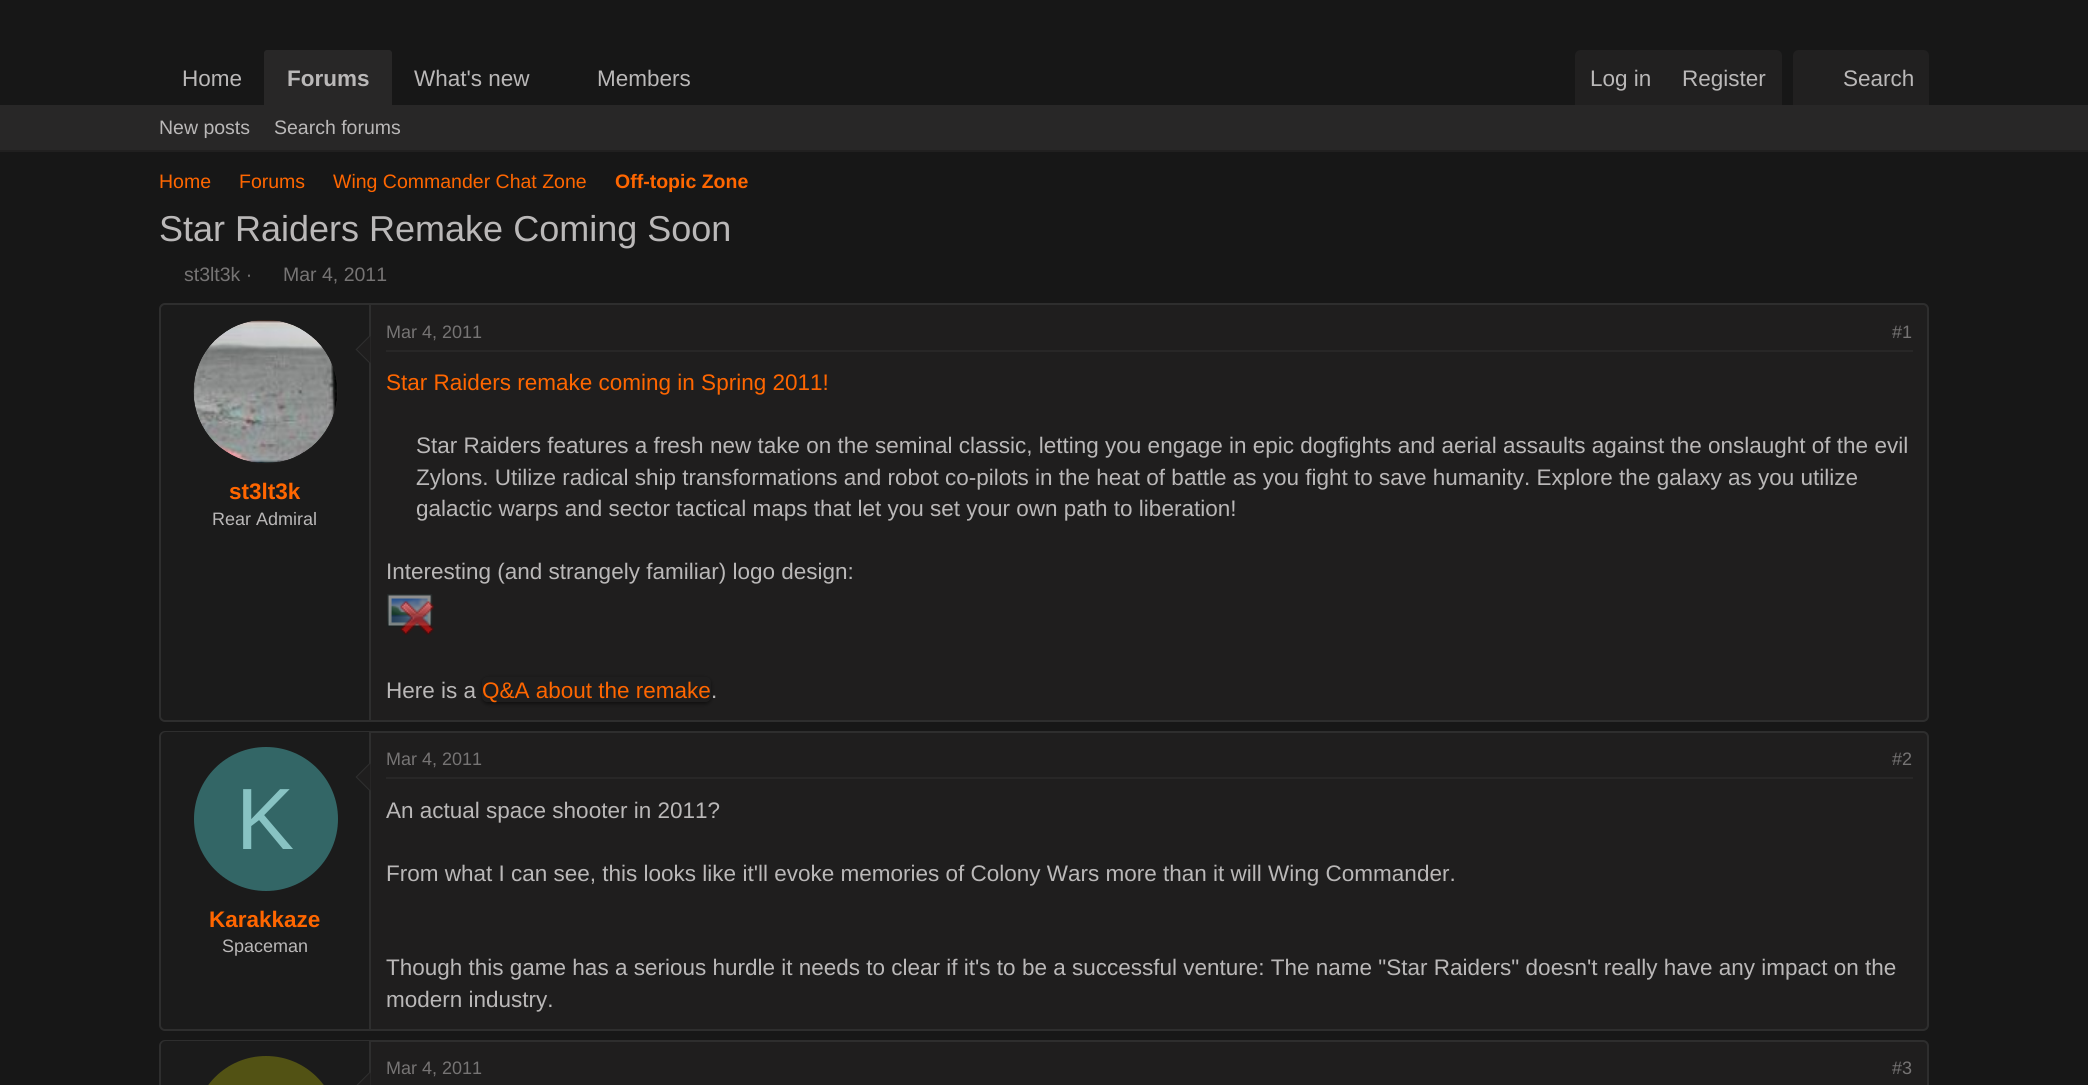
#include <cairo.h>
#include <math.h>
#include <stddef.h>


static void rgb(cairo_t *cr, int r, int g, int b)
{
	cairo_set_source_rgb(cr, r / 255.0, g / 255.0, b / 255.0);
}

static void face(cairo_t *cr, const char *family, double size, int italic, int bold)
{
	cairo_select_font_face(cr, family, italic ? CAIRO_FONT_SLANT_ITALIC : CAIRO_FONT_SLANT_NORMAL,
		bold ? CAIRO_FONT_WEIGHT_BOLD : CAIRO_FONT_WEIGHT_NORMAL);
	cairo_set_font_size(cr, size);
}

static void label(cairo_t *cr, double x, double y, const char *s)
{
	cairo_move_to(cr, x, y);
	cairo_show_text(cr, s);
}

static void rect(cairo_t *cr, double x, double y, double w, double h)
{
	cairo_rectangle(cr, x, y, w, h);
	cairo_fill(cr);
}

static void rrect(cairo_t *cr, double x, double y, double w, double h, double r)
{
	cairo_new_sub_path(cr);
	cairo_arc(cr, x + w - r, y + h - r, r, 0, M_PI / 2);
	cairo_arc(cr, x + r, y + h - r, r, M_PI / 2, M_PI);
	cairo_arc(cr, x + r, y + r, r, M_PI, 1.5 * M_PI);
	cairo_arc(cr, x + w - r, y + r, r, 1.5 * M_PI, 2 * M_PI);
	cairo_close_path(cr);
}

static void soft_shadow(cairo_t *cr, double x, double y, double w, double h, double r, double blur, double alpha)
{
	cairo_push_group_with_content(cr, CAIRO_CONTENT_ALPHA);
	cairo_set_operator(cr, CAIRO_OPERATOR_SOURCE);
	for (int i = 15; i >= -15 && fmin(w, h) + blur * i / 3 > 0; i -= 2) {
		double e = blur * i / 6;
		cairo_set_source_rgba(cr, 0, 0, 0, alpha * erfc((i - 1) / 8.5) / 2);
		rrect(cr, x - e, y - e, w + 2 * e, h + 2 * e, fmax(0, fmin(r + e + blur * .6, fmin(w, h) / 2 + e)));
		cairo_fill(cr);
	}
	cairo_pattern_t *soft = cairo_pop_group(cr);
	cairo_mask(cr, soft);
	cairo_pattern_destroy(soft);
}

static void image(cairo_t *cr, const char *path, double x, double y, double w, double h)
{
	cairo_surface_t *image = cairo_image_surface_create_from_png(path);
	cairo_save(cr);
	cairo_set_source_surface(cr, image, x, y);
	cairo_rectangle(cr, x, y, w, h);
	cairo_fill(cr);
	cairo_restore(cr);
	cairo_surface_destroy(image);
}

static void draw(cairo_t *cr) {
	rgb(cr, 23, 23, 23);
	cairo_paint(cr);
	face(cr, "Liberation Sans", 22.5, 0, 0);
	rgb(cr, 186, 184, 184);
	label(cr, 182, 86, "Home");
	rgb(cr, 40, 39, 39);
	cairo_new_path(cr);
	cairo_move_to(cr, 267, 50);
	cairo_line_to(cr, 389, 50);
	cairo_curve_to(cr, 390.5, 50, 392, 51.5, 392, 53);
	cairo_line_to(cr, 392, 105);
	cairo_line_to(cr, 264, 105);
	cairo_line_to(cr, 264, 53);
	cairo_curve_to(cr, 264, 51.5, 265.5, 50, 267, 50);
	cairo_close_path(cr);
	cairo_fill(cr);
	face(cr, "Liberation Sans", 22.5, 0, 1);
	rgb(cr, 186, 184, 184);
	label(cr, 287, 86, "Forums");
	face(cr, "Liberation Sans", 22.5, 0, 0);
	label(cr, 414, 86, "What's new");
	label(cr, 597, 86, "Members");
	rgb(cr, 33, 32, 32);
	cairo_new_path(cr);
	cairo_move_to(cr, 1581, 50);
	cairo_line_to(cr, 1776, 50);
	cairo_curve_to(cr, 1779.5, 50, 1782, 52.5, 1782, 56);
	cairo_line_to(cr, 1782, 105);
	cairo_line_to(cr, 1575, 105);
	cairo_line_to(cr, 1575, 56);
	cairo_curve_to(cr, 1575, 52.5, 1577.5, 50, 1581, 50);
	cairo_close_path(cr);
	cairo_fill(cr);
	rgb(cr, 186, 184, 184);
	label(cr, 1590, 86, "Log in");
	label(cr, 1682, 86, "Register");
	rgb(cr, 33, 32, 32);
	cairo_new_path(cr);
	cairo_move_to(cr, 1799, 50);
	cairo_line_to(cr, 1923, 50);
	cairo_curve_to(cr, 1926.5, 50, 1929, 52.5, 1929, 56);
	cairo_line_to(cr, 1929, 105);
	cairo_line_to(cr, 1793, 105);
	cairo_line_to(cr, 1793, 56);
	cairo_curve_to(cr, 1793, 52.5, 1795.5, 50, 1799, 50);
	cairo_close_path(cr);
	cairo_fill(cr);
	rgb(cr, 186, 184, 184);
	label(cr, 1843, 86, "Search");
	rgb(cr, 40, 39, 39);
	rect(cr, 0, 105, 2088, 45);
	rgb(cr, 33, 32, 32);
	rect(cr, 0, 150, 2088, 2);
	face(cr, "Liberation Sans", 19.5, 0, 0);
	rgb(cr, 186, 184, 184);
	label(cr, 159, 134, "New posts");
	label(cr, 274, 134, "Search forums");
	rgb(cr, 255, 102, 0);
	label(cr, 159, 188, "Home");
	label(cr, 239, 188, "Forums");
	label(cr, 333, 188, "Wing Commander Chat Zone");
	face(cr, "Liberation Sans", 19.5, 0, 1);
	label(cr, 615, 188, "Off-topic Zone");
	face(cr, "Liberation Sans", 36, 0, 0);
	rgb(cr, 186, 184, 184);
	label(cr, 159, 241, "Star Raiders Remake Coming Soon");
	face(cr, "Liberation Sans", 19.5, 0, 0);
	rgb(cr, 118, 116, 116);
	label(cr, 184, 281, "st3lt3k ·");
	label(cr, 283, 281, "Mar 4, 2011");
	rgb(cr, 31, 30, 30);
	rrect(cr, 160, 304, 1768, 417, 5);
	cairo_fill_preserve(cr);
	rgb(cr, 46, 46, 46);
	cairo_stroke(cr);
	rgb(cr, 27, 27, 27);
	cairo_new_path(cr);
	cairo_move_to(cr, 166, 305);
	cairo_line_to(cr, 371, 305);
	cairo_line_to(cr, 371, 720);
	cairo_line_to(cr, 166, 720);
	cairo_curve_to(cr, 163, 720, 161, 718, 161, 715);
	cairo_line_to(cr, 161, 310);
	cairo_curve_to(cr, 161, 307, 163, 305, 166, 305);
	cairo_close_path(cr);
	cairo_fill(cr);
	rgb(cr, 46, 46, 46);
	rect(cr, 369, 305, 2, 415);
	rgb(cr, 31, 30, 30);
	cairo_arc(cr, 266, 392, 72, 0, 2 * M_PI);
	cairo_fill(cr);
	image(cr, "image0.png", 193, 320, 144, 143);
	rgb(cr, 46, 46, 46);
	cairo_new_path(cr);
	cairo_move_to(cr, 370.5, 334.5);
	cairo_line_to(cr, 370.5, 364.5);
	cairo_line_to(cr, 355.5, 349.5);
	cairo_close_path(cr);
	cairo_fill(cr);
	rgb(cr, 31, 30, 30);
	cairo_new_path(cr);
	cairo_move_to(cr, 370.5, 336);
	cairo_line_to(cr, 370.5, 363);
	cairo_line_to(cr, 357, 349.5);
	cairo_close_path(cr);
	cairo_fill(cr);
	face(cr, "Liberation Sans", 22.5, 0, 1);
	rgb(cr, 255, 102, 0);
	label(cr, 229, 499, "st3lt3k");
	face(cr, "Liberation Sans", 18, 0, 0);
	rgb(cr, 186, 184, 184);
	label(cr, 212, 525, "Rear Admiral");
	rgb(cr, 40, 39, 39);
	rect(cr, 386, 350, 1527, 2);
	rgb(cr, 118, 116, 116);
	label(cr, 386, 338, "Mar 4, 2011");
	label(cr, 1892, 338, "#1");
	face(cr, "Liberation Sans", 22.5, 0, 0);
	rgb(cr, 255, 102, 0);
	label(cr, 386, 390, "Star Raiders remake coming in Spring 2011!");
	rgb(cr, 186, 184, 184);
	label(cr, 416, 453, "Star Raiders features a fresh new take on the seminal classic, letting you engage in epic dogfights and aerial assaults against the onslaught of the evil");
	label(cr, 416, 485, "Zylons. Utilize radical ship transformations and robot co-pilots in the heat of battle as you fight to save humanity. Explore the galaxy as you utilize");
	label(cr, 416, 516, "galactic warps and sector tactical maps that let you set your own path to liberation!");
	label(cr, 386, 579, "Interesting (and strangely familiar) logo design:");
	image(cr, "image1.png", 387, 594, 47, 41);
	label(cr, 386, 698, "Here is a");
	cairo_save(cr);
	cairo_set_fill_rule(cr, CAIRO_FILL_RULE_EVEN_ODD);
	cairo_new_path(cr);
	cairo_move_to(cr, 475, 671);
	cairo_line_to(cr, 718, 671);
	cairo_line_to(cr, 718, 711);
	cairo_line_to(cr, 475, 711);
	cairo_close_path(cr);
	cairo_move_to(cr, 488, 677);
	cairo_line_to(cr, 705, 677);
	cairo_curve_to(cr, 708.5, 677, 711, 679.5, 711, 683);
	cairo_line_to(cr, 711, 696);
	cairo_curve_to(cr, 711, 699.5, 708.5, 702, 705, 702);
	cairo_line_to(cr, 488, 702);
	cairo_curve_to(cr, 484.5, 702, 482, 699.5, 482, 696);
	cairo_line_to(cr, 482, 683);
	cairo_curve_to(cr, 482, 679.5, 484.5, 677, 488, 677);
	cairo_close_path(cr);
	cairo_clip(cr);
	rgb(cr, 0, 0, 0);
	soft_shadow(cr, 482, 678, 229, 26, 6, 2, 0.5);
	cairo_restore(cr);
	rgb(cr, 255, 102, 0);
	label(cr, 482, 698, "Q&A about the remake");
	rgb(cr, 186, 184, 184);
	label(cr, 711, 698, ".");
	rgb(cr, 31, 30, 30);
	rrect(cr, 160, 732, 1768, 298, 5);
	cairo_fill_preserve(cr);
	rgb(cr, 46, 46, 46);
	cairo_stroke(cr);
	rgb(cr, 27, 27, 27);
	cairo_new_path(cr);
	cairo_move_to(cr, 166, 732);
	cairo_line_to(cr, 371, 732);
	cairo_line_to(cr, 371, 1029);
	cairo_line_to(cr, 166, 1029);
	cairo_curve_to(cr, 163, 1029, 161, 1027, 161, 1024);
	cairo_line_to(cr, 161, 737);
	cairo_curve_to(cr, 161, 734, 163, 732, 166, 732);
	cairo_close_path(cr);
	cairo_fill(cr);
	rgb(cr, 46, 46, 46);
	rect(cr, 369, 732, 2, 297);
	cairo_new_path(cr);
	cairo_move_to(cr, 370.5, 762);
	cairo_line_to(cr, 370.5, 792);
	cairo_line_to(cr, 355.5, 777);
	cairo_close_path(cr);
	cairo_fill(cr);
	rgb(cr, 31, 30, 30);
	cairo_new_path(cr);
	cairo_move_to(cr, 370.5, 763.5);
	cairo_line_to(cr, 370.5, 790.5);
	cairo_line_to(cr, 357, 777);
	cairo_close_path(cr);
	cairo_fill(cr);
	rgb(cr, 51, 102, 102);
	cairo_arc(cr, 266, 819, 72, 0, 2 * M_PI);
	cairo_fill(cr);
	face(cr, "Liberation Sans", 87, 0, 0);
	rgb(cr, 136, 195, 195);
	label(cr, 236, 849, "K");
	face(cr, "Liberation Sans", 22.5, 0, 1);
	rgb(cr, 255, 102, 0);
	label(cr, 209, 927, "Karakkaze");
	face(cr, "Liberation Sans", 18, 0, 0);
	rgb(cr, 186, 184, 184);
	label(cr, 222, 952, "Spaceman");
	rgb(cr, 40, 39, 39);
	rect(cr, 386, 777, 1527, 2);
	rgb(cr, 118, 116, 116);
	label(cr, 386, 765, "Mar 4, 2011");
	label(cr, 1892, 765, "#2");
	face(cr, "Liberation Sans", 22.5, 0, 0);
	rgb(cr, 186, 184, 184);
	label(cr, 386, 818, "An actual space shooter in 2011?");
	label(cr, 386, 881, "From what I can see, this looks like it'll evoke memories of Colony Wars more than it will Wing Commander.");
	label(cr, 386, 975, "Though this game has a serious hurdle it needs to clear if it's to be a successful venture: The name \"Star Raiders\" doesn't really have any impact on the");
	label(cr, 386, 1007, "modern industry.");
	rgb(cr, 31, 30, 30);
	rrect(cr, 160, 1041, 1768, 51, 5);
	cairo_fill_preserve(cr);
	rgb(cr, 46, 46, 46);
	cairo_stroke(cr);
	rgb(cr, 27, 27, 27);
	cairo_new_path(cr);
	cairo_move_to(cr, 166, 1041);
	cairo_line_to(cr, 371, 1041);
	cairo_line_to(cr, 371, 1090);
	cairo_line_to(cr, 166, 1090);
	cairo_curve_to(cr, 163, 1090, 161, 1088, 161, 1085);
	cairo_line_to(cr, 161, 1046);
	cairo_curve_to(cr, 161, 1043, 163, 1041, 166, 1041);
	cairo_close_path(cr);
	cairo_fill(cr);
	rgb(cr, 46, 46, 46);
	rect(cr, 369, 1041, 2, 44);
	rgb(cr, 82, 82, 20);
	rrect(cr, 194, 1056, 144, 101, 72);
	cairo_fill(cr);
	rgb(cr, 46, 46, 46);
	cairo_new_path(cr);
	cairo_move_to(cr, 370.5, 1071);
	cairo_line_to(cr, 370.5, 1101);
	cairo_line_to(cr, 355.5, 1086);
	cairo_close_path(cr);
	cairo_fill(cr);
	rgb(cr, 31, 30, 30);
	cairo_new_path(cr);
	cairo_move_to(cr, 370.5, 1072.5);
	cairo_line_to(cr, 370.5, 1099.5);
	cairo_line_to(cr, 357, 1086);
	cairo_close_path(cr);
	cairo_fill(cr);
	face(cr, "Liberation Sans", 18, 0, 0);
	rgb(cr, 118, 116, 116);
	label(cr, 386, 1074, "Mar 4, 2011");
	label(cr, 1892, 1074, "#3");
}

int main(void) {
	cairo_surface_t *surface = cairo_image_surface_create(CAIRO_FORMAT_RGB24, 2088, 1085);
	cairo_t *cr = cairo_create(surface);
	cairo_font_options_t *options = cairo_font_options_create();
	cairo_font_options_set_hint_metrics(options, CAIRO_HINT_METRICS_OFF);
	cairo_font_options_set_hint_style(options, CAIRO_HINT_STYLE_NONE);
	cairo_set_font_options(cr, options);
	cairo_set_miter_limit(cr, 4);
	draw(cr);
	cairo_surface_write_to_png(surface, "render.png");
	cairo_font_options_destroy(options);
	cairo_destroy(cr);
	cairo_surface_destroy(surface);
	return 0;
}
